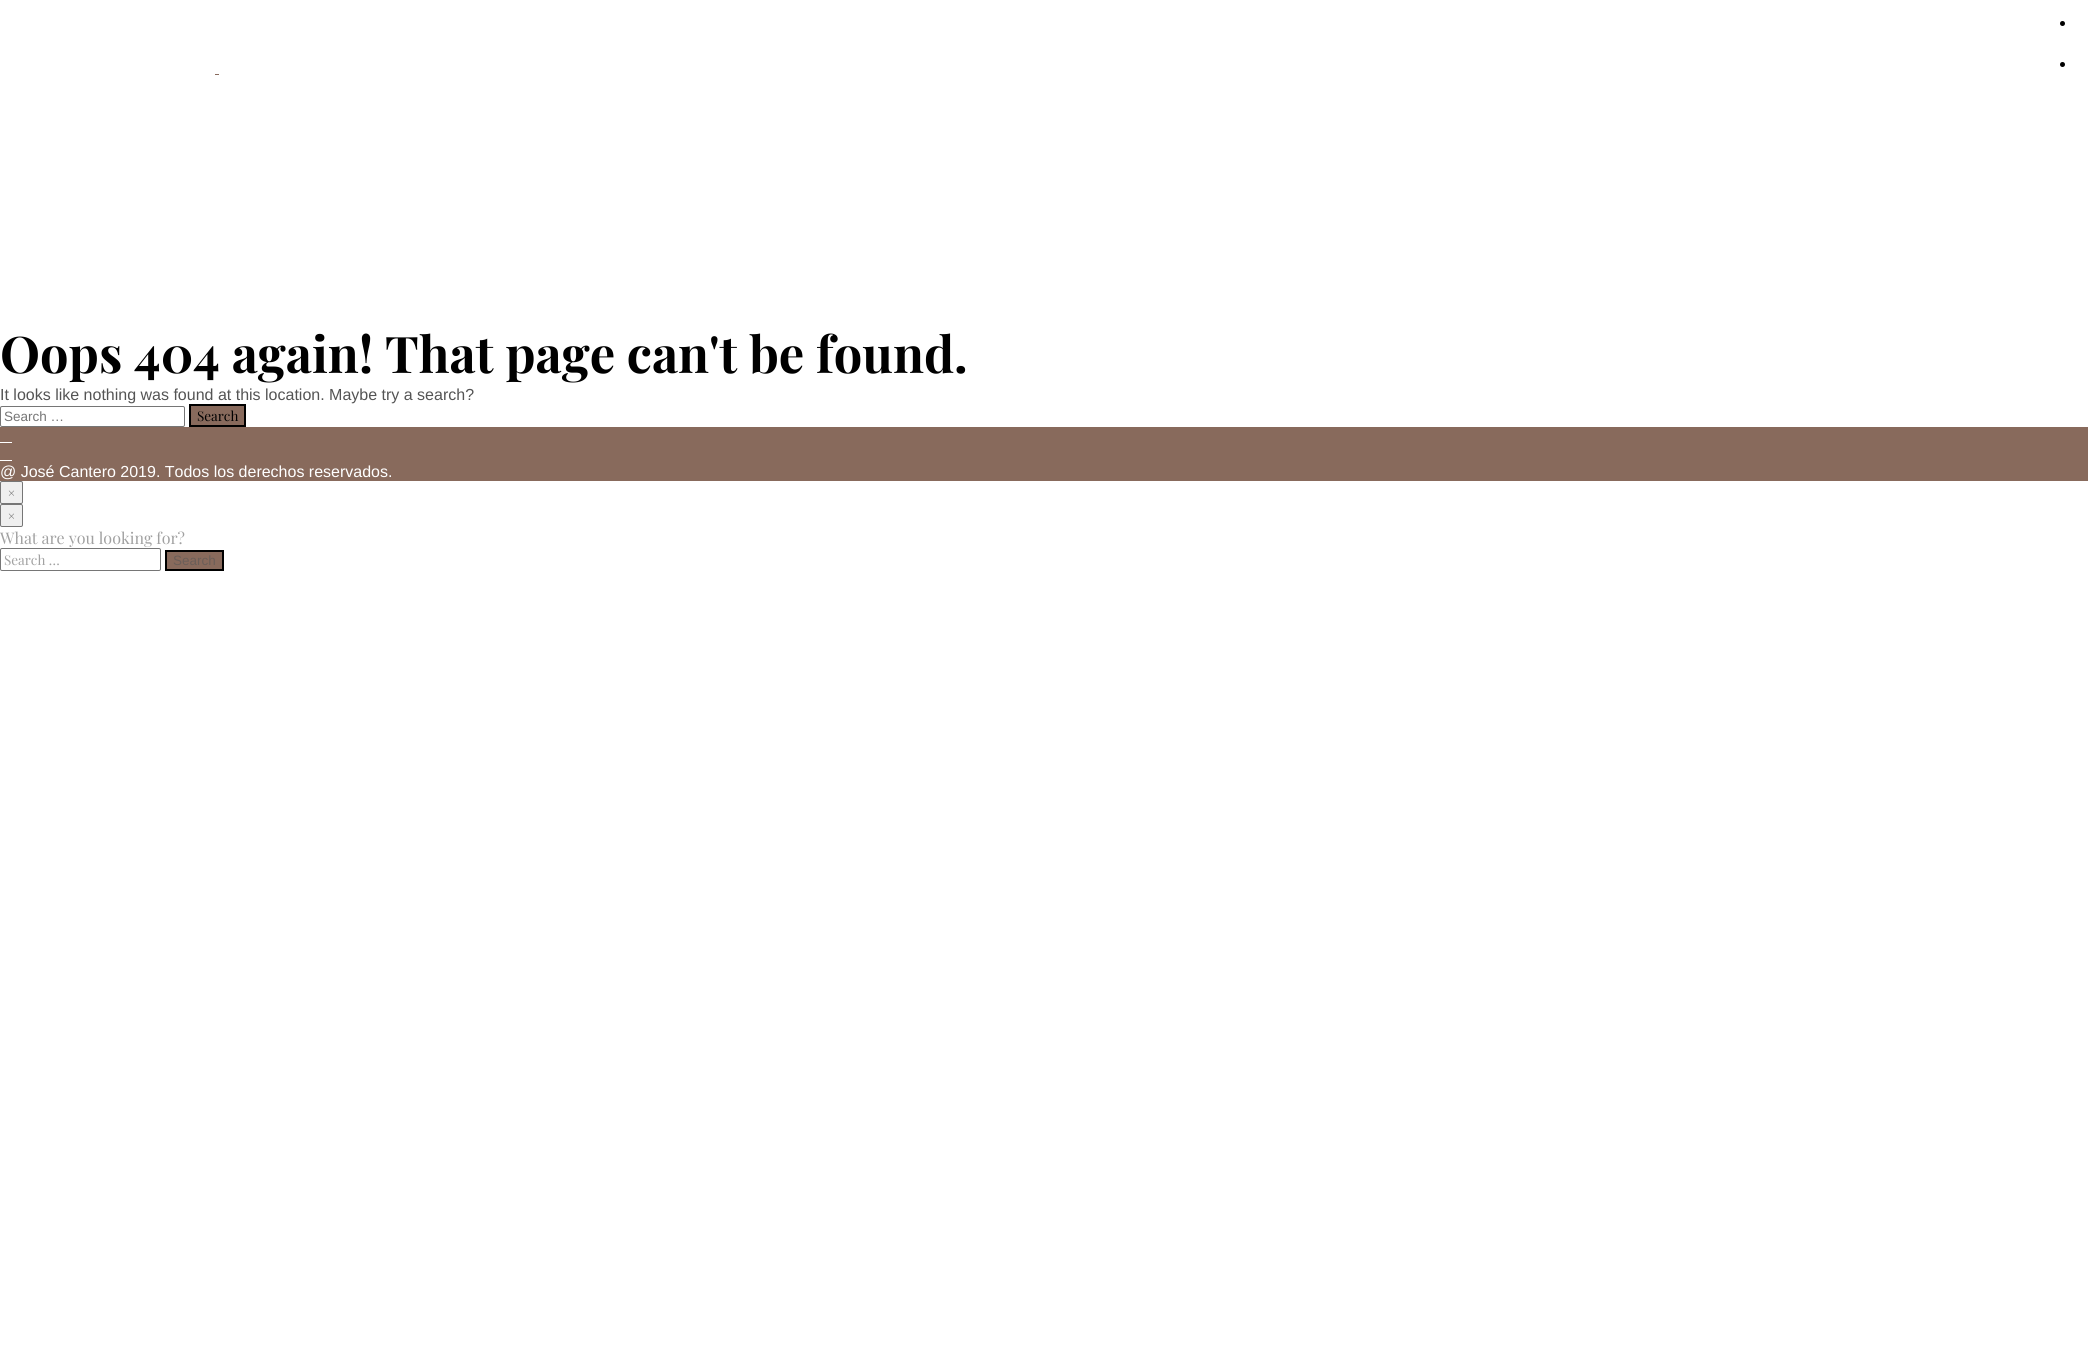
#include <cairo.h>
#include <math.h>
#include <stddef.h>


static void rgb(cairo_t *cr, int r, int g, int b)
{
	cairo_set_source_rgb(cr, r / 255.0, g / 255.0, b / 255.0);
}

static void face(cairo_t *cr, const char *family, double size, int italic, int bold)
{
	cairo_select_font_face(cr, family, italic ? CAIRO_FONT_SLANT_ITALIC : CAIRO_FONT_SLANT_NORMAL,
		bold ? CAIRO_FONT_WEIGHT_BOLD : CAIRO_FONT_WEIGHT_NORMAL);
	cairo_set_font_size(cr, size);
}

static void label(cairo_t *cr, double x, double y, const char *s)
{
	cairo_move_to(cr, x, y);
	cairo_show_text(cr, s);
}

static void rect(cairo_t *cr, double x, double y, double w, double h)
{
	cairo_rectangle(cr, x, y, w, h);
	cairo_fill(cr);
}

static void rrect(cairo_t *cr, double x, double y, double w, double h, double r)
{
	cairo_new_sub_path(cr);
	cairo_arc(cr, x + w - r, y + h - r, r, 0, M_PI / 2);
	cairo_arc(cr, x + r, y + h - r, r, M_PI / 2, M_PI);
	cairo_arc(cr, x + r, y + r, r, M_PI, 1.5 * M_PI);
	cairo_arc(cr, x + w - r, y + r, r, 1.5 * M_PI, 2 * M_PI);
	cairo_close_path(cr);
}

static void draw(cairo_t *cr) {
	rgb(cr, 255, 255, 255);
	cairo_paint(cr);
	rgb(cr, 0, 0, 0);
	cairo_arc(cr, 2062.5, 23.5, 2.5, 0, 2 * M_PI);
	cairo_fill(cr);
	cairo_arc(cr, 2062.5, 64.5, 2.5, 0, 2 * M_PI);
	cairo_fill(cr);
	rgb(cr, 136, 106, 92);
	rect(cr, 215, 74, 4, 1);
	face(cr, "Playfair Display", 50.5, 0, 1);
	rgb(cr, 0, 0, 0);
	label(cr, 0, 373, "Oops 404 again! That page can't be found.");
	face(cr, "Liberation Sans", 16, 0, 0);
	rgb(cr, 84, 84, 84);
	label(cr, 0, 400, "It looks like nothing was found at this location. Maybe try a search?");
	rrect(cr, 0.5, 406.5, 184, 20, 1.5);
	rgb(cr, 118, 118, 118);
	cairo_set_line_width(cr, 1);
	cairo_stroke(cr);
	face(cr, "Liberation Sans", 13.5, 0, 0);
	rgb(cr, 117, 117, 117);
	label(cr, 4, 421, "Search …");
	rgb(cr, 136, 106, 92);
	cairo_rectangle(cr, 190, 405, 55, 21);
	cairo_fill_preserve(cr);
	rgb(cr, 0, 0, 0);
	cairo_set_line_width(cr, 2);
	cairo_stroke(cr);
	face(cr, "Playfair Display", 13.5, 0, 0);
	label(cr, 197, 421, "Search");
	rgb(cr, 136, 106, 92);
	rect(cr, 0, 427, 2088, 54);
	rgb(cr, 255, 255, 255);
	rect(cr, 0, 442, 12, 1);
	rect(cr, 0, 460, 12, 1);
	face(cr, "Liberation Sans", 16, 0, 0);
	label(cr, 0, 477, "@ José Cantero 2019. Todos los derechos reservados.");
	rgb(cr, 239, 239, 239);
	rrect(cr, 0.5, 481.5, 22, 22, 1.5);
	cairo_fill_preserve(cr);
	rgb(cr, 118, 118, 118);
	cairo_set_line_width(cr, 1);
	cairo_stroke(cr);
	face(cr, "Playfair Display", 13.5, 0, 0);
	rgb(cr, 84, 84, 84);
	label(cr, 8, 498, "×");
	rgb(cr, 239, 239, 239);
	rrect(cr, 0.5, 504.5, 22, 22, 1.5);
	cairo_fill_preserve(cr);
	rgb(cr, 118, 118, 118);
	cairo_stroke(cr);
	rgb(cr, 84, 84, 84);
	label(cr, 8, 521, "×");
	face(cr, "Playfair Display", 16, 0, 0);
	rgb(cr, 161, 161, 161);
	label(cr, 0, 544, "What are you looking for?");
	rrect(cr, 0.5, 548.5, 160, 22, 1.5);
	rgb(cr, 118, 118, 118);
	cairo_stroke(cr);
	face(cr, "Playfair Display", 13.5, 0, 0);
	rgb(cr, 161, 161, 161);
	label(cr, 4, 565, "Search …");
	rgb(cr, 136, 106, 92);
	cairo_rectangle(cr, 166, 551, 57, 19);
	cairo_fill_preserve(cr);
	rgb(cr, 0, 0, 0);
	cairo_set_line_width(cr, 2);
	cairo_stroke(cr);
	face(cr, "Liberation Sans", 13.5, 0, 0);
	rgb(cr, 107, 94, 88);
	label(cr, 173, 565, "Search");
}

int main(void) {
	cairo_surface_t *surface = cairo_image_surface_create(CAIRO_FORMAT_RGB24, 2088, 1357);
	cairo_t *cr = cairo_create(surface);
	cairo_font_options_t *options = cairo_font_options_create();
	cairo_font_options_set_hint_metrics(options, CAIRO_HINT_METRICS_OFF);
	cairo_font_options_set_hint_style(options, CAIRO_HINT_STYLE_NONE);
	cairo_set_font_options(cr, options);
	cairo_set_miter_limit(cr, 4);
	draw(cr);
	cairo_surface_write_to_png(surface, "render.png");
	cairo_font_options_destroy(options);
	cairo_destroy(cr);
	cairo_surface_destroy(surface);
	return 0;
}
